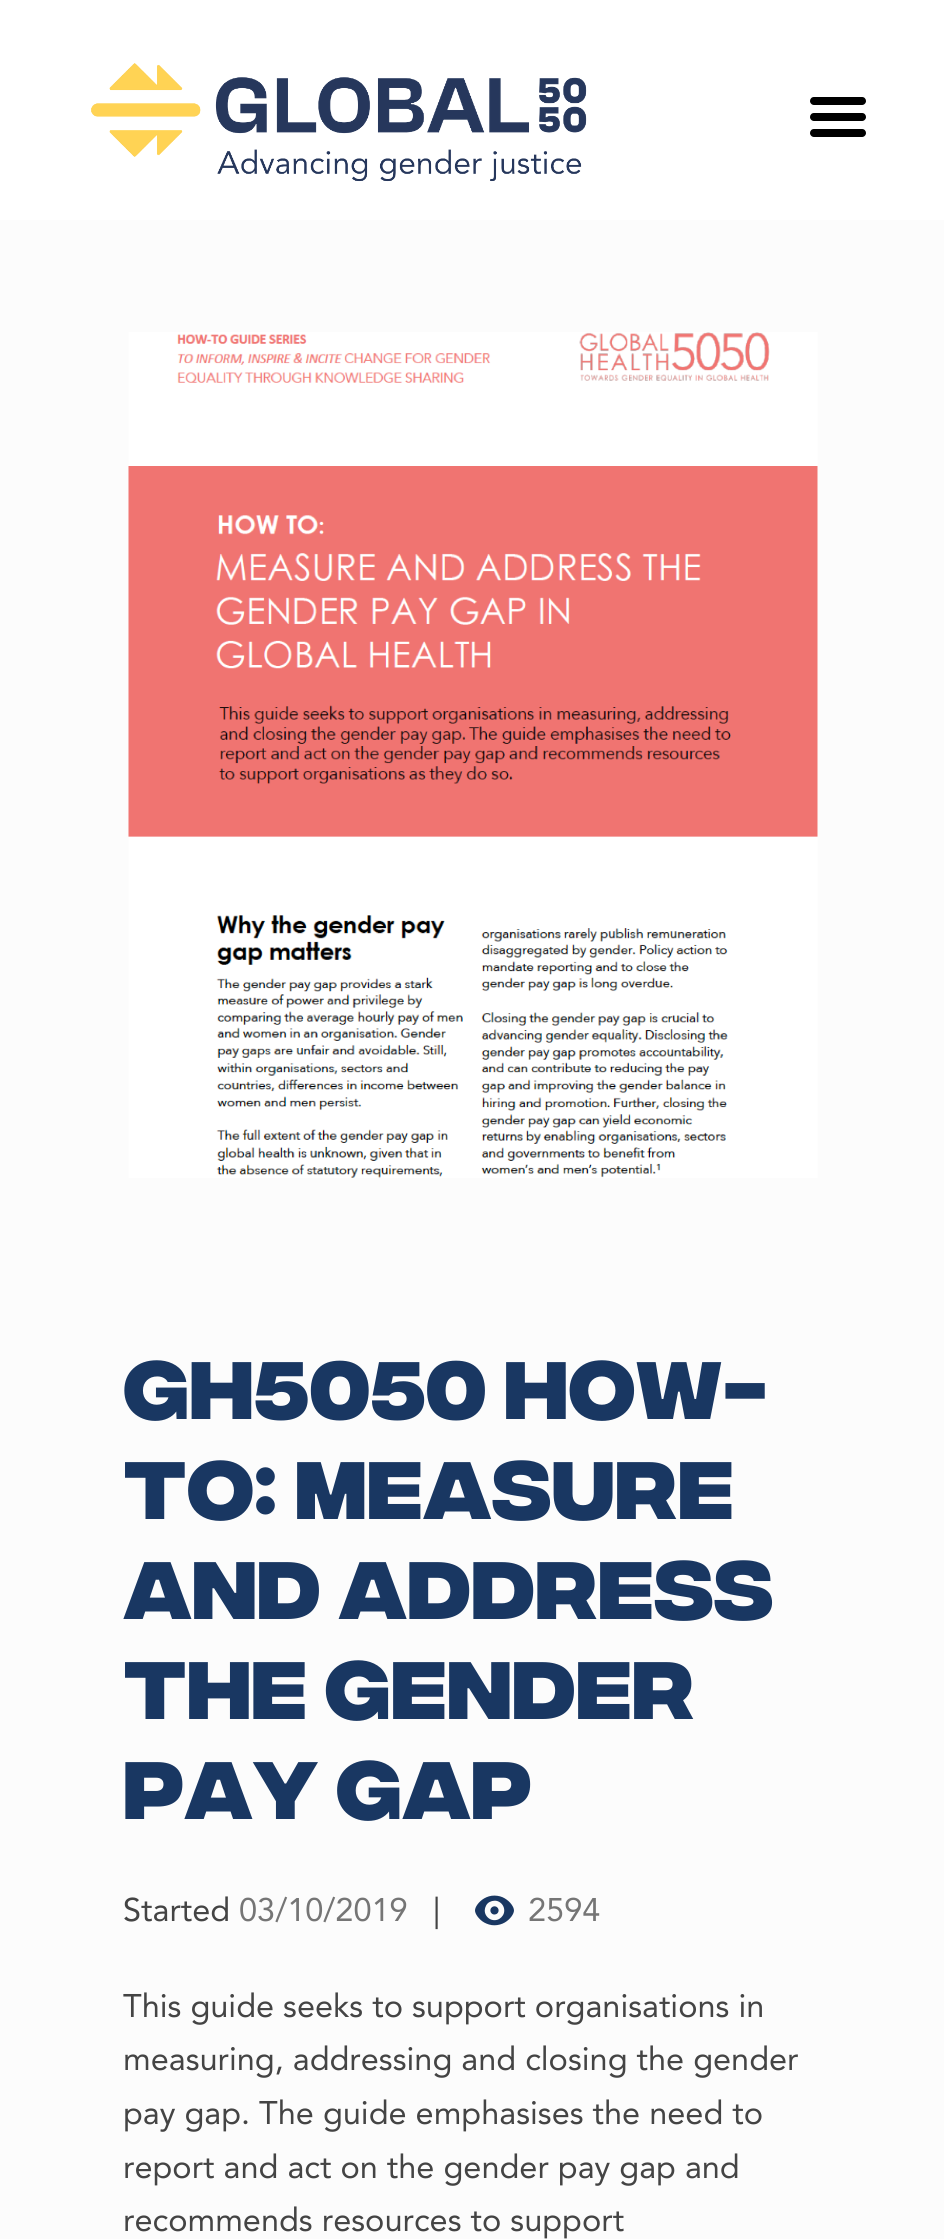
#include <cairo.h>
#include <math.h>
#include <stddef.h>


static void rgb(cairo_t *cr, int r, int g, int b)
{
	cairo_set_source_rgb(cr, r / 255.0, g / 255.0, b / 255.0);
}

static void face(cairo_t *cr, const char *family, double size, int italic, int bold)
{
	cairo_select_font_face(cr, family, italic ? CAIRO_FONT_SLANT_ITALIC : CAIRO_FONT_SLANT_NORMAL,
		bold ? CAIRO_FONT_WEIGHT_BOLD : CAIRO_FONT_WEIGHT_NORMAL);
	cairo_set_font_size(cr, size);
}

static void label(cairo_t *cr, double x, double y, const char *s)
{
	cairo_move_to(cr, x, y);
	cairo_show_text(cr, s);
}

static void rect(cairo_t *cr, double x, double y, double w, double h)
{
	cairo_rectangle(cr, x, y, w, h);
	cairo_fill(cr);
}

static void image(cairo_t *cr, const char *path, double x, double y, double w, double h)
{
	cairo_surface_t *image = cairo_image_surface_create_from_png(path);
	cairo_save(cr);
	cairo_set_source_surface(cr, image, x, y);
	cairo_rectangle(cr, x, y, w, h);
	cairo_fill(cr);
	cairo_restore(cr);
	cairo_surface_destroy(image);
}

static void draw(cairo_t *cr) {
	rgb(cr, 255, 255, 255);
	cairo_paint(cr);
	image(cr, "image0.png", 91, 63, 496, 119);
	image(cr, "image1.png", 810, 97, 56, 40);
	rgb(cr, 252, 252, 252);
	rect(cr, 0, 220, 944, 2019);
	image(cr, "image2.png", 128, 332, 690, 846);
	face(cr, "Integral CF", 81.25, 0, 1);
	rgb(cr, 25, 55, 98);
	label(cr, 123, 1419, "GH5050 How-");
	label(cr, 123, 1519, "To: Measure");
	label(cr, 123, 1619, "and Address");
	label(cr, 123, 1719, "the Gender");
	label(cr, 123, 1819, "Pay Gap");
	face(cr, "Avenir", 32.5, 0, 0);
	rgb(cr, 68, 68, 68);
	label(cr, 123, 1921, "Started");
	rgb(cr, 117, 117, 117);
	label(cr, 239, 1921, "03/10/2019");
	rgb(cr, 68, 68, 68);
	label(cr, 433, 1921, "|");
	image(cr, "image3.png", 475, 1895, 39, 31);
	rgb(cr, 117, 117, 117);
	label(cr, 528, 1921, "2594");
	rgb(cr, 68, 68, 68);
	label(cr, 123, 2017, "This guide seeks to support organisations in");
	label(cr, 123, 2070, "measuring, addressing and closing the gender");
	label(cr, 123, 2124, "pay gap. The guide emphasises the need to");
	label(cr, 123, 2178, "report and act on the gender pay gap and");
	label(cr, 123, 2231, "recommends resources to support");
}

int main(void) {
	cairo_surface_t *surface = cairo_image_surface_create(CAIRO_FORMAT_RGB24, 944, 2239);
	cairo_t *cr = cairo_create(surface);
	cairo_font_options_t *options = cairo_font_options_create();
	cairo_font_options_set_hint_metrics(options, CAIRO_HINT_METRICS_OFF);
	cairo_font_options_set_hint_style(options, CAIRO_HINT_STYLE_NONE);
	cairo_set_font_options(cr, options);
	cairo_set_miter_limit(cr, 4);
	draw(cr);
	cairo_surface_write_to_png(surface, "render.png");
	cairo_font_options_destroy(options);
	cairo_destroy(cr);
	cairo_surface_destroy(surface);
	return 0;
}
